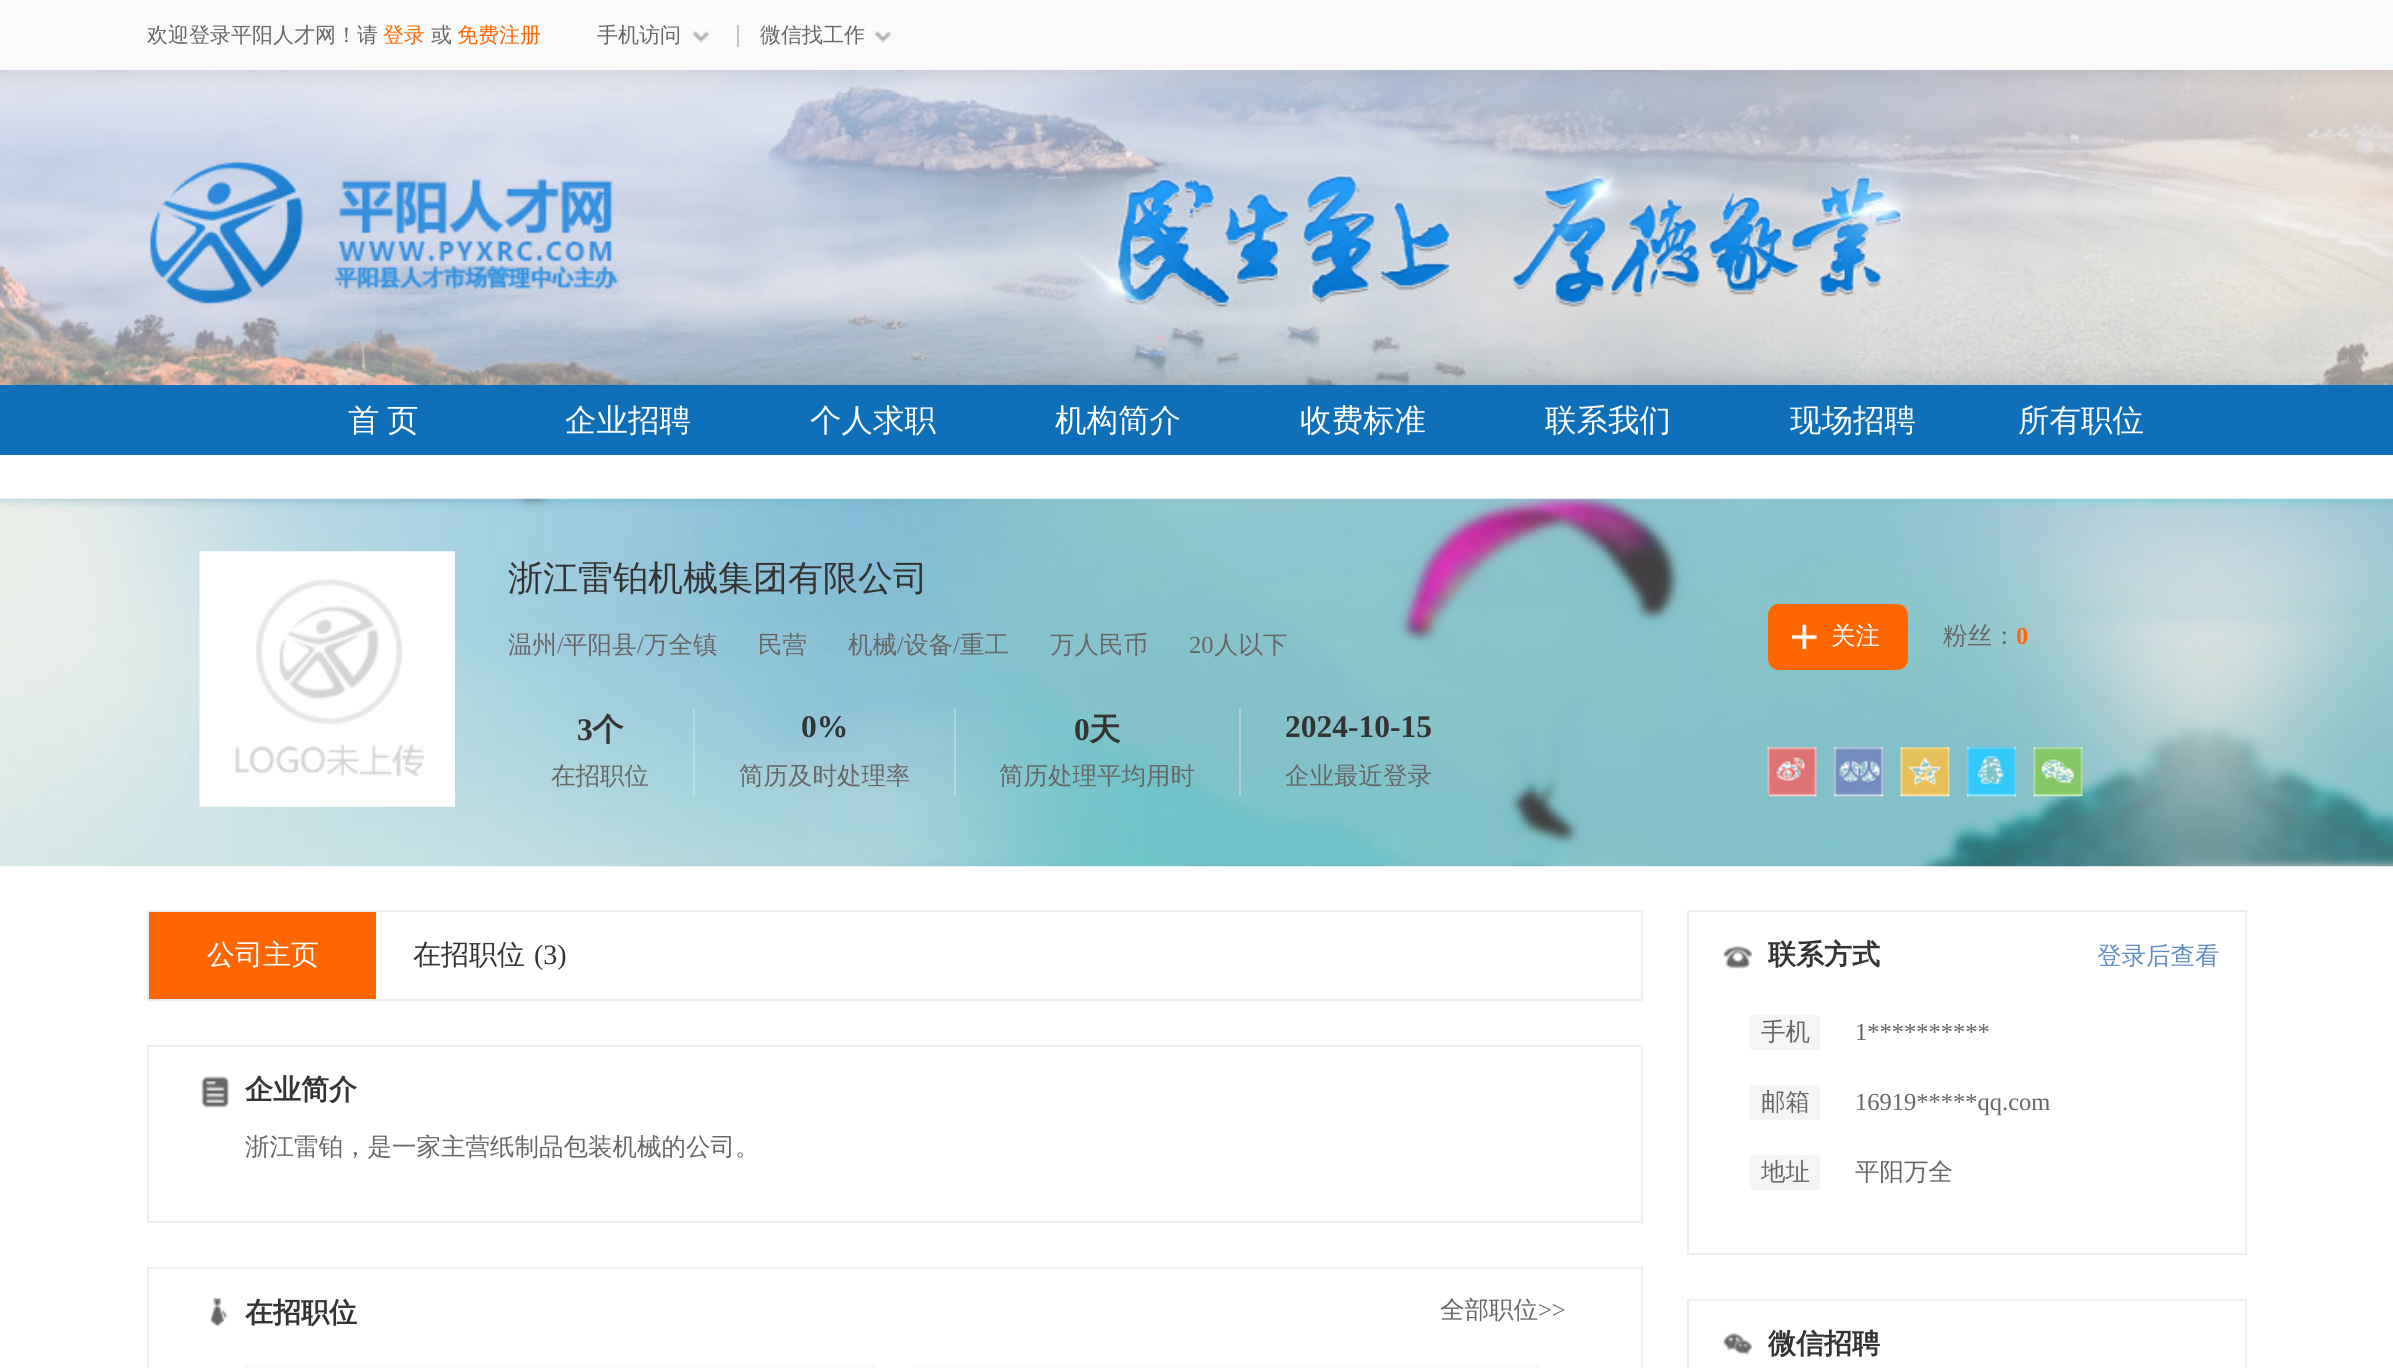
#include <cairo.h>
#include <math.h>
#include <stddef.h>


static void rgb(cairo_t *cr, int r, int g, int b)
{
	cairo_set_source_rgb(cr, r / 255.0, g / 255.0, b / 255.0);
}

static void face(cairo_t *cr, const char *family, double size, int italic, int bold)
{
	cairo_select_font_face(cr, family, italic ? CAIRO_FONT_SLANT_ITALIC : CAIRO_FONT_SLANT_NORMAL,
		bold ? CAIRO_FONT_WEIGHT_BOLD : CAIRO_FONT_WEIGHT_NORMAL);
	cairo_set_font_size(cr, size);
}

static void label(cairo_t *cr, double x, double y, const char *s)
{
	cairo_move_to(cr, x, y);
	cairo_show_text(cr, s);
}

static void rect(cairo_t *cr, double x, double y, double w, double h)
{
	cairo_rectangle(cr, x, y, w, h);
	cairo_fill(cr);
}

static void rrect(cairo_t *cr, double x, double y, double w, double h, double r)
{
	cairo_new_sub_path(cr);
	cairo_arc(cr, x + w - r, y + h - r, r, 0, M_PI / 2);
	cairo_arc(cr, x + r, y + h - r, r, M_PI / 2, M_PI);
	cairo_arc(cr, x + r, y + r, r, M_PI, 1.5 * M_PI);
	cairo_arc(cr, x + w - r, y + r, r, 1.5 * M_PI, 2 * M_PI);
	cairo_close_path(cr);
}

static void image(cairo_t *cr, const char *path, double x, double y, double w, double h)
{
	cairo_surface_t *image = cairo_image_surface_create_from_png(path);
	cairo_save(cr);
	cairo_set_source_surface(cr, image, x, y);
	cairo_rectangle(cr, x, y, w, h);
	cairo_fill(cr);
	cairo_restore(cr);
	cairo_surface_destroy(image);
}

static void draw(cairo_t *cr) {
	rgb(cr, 255, 255, 255);
	cairo_paint(cr);
	rgb(cr, 250, 250, 250);
	rect(cr, 0, 0, 2393, 70);
	face(cr, "WenQuanYi Zen Hei Medium", 21, 0, 0);
	rgb(cr, 102, 102, 102);
	label(cr, 147, 42, "欢迎登录平阳人才网！请");
	rgb(cr, 255, 102, 0);
	label(cr, 383, 42, "登录");
	rgb(cr, 102, 102, 102);
	label(cr, 431, 42, "或");
	rgb(cr, 255, 102, 0);
	label(cr, 457, 42, "免费注册");
	rgb(cr, 102, 102, 102);
	label(cr, 597, 42, "手机访问");
	image(cr, "image0.png", 693, 31, 16, 12);
	rgb(cr, 197, 197, 197);
	rect(cr, 737, 25, 2, 22);
	rgb(cr, 102, 102, 102);
	label(cr, 760, 42, "微信找工作");
	image(cr, "image1.png", 875, 31, 16, 12);
	image(cr, "image2.png", 0, 70, 2393, 315);
	rgb(cr, 15, 111, 185);
	rect(cr, 0, 385, 2393, 70);
	face(cr, "WenQuanYi Zen Hei Medium", 31.5, 0, 0);
	rgb(cr, 255, 255, 255);
	label(cr, 348, 431, "首");
	label(cr, 387, 431, "页");
	label(cr, 565, 431, "企业招聘");
	label(cr, 810, 431, "个人求职");
	label(cr, 1055, 431, "机构简介");
	label(cr, 1300, 431, "收费标准");
	label(cr, 1545, 431, "联系我们");
	label(cr, 1790, 431, "现场招聘");
	label(cr, 2018, 431, "所有职位");
	image(cr, "image3.png", 0, 498, 2393, 369);
	image(cr, "image4.png", 199, 551, 256, 256);
	face(cr, "WenQuanYi Zen Hei Medium", 35, 0, 0);
	rgb(cr, 51, 51, 51);
	label(cr, 508, 590, "浙江雷铂机械集团有限公司");
	face(cr, "WenQuanYi Zen Hei Medium", 24.5, 0, 0);
	rgb(cr, 102, 102, 102);
	label(cr, 508, 653, "温州");
	face(cr, "Liberation Serif", 24.5, 0, 0);
	label(cr, 557, 653, "/");
	face(cr, "WenQuanYi Zen Hei Medium", 24.5, 0, 0);
	label(cr, 563, 653, "平阳县");
	face(cr, "Liberation Serif", 24.5, 0, 0);
	label(cr, 637, 653, "/");
	face(cr, "WenQuanYi Zen Hei Medium", 24.5, 0, 0);
	label(cr, 644, 653, "万全镇");
	label(cr, 758, 653, "民营");
	label(cr, 848, 653, "机械");
	face(cr, "Liberation Serif", 24.5, 0, 0);
	label(cr, 897, 653, "/");
	face(cr, "WenQuanYi Zen Hei Medium", 24.5, 0, 0);
	label(cr, 904, 653, "设备");
	face(cr, "Liberation Serif", 24.5, 0, 0);
	label(cr, 953, 653, "/");
	face(cr, "WenQuanYi Zen Hei Medium", 24.5, 0, 0);
	label(cr, 960, 653, "重工");
	label(cr, 1050, 653, "万人民币");
	face(cr, "Liberation Serif", 24.5, 0, 0);
	label(cr, 1189, 653, "20");
	face(cr, "WenQuanYi Zen Hei Medium", 24.5, 0, 0);
	label(cr, 1214, 653, "人以下");
	rgb(cr, 255, 102, 0);
	rrect(cr, 1768, 604, 140, 66, 11);
	cairo_fill(cr);
	image(cr, "image5.png", 1792, 624, 25, 26);
	rgb(cr, 255, 255, 255);
	label(cr, 1831, 644, "关注");
	rgb(cr, 102, 102, 102);
	label(cr, 1943, 644, "粉丝：");
	face(cr, "Liberation Serif", 24.5, 0, 1);
	rgb(cr, 255, 102, 0);
	label(cr, 2016, 644, "0");
	cairo_set_source_rgba(cr, 0.91, 0.91, 0.91, 0.43);
	rect(cr, 693, 709, 2, 87);
	face(cr, "Liberation Serif", 31.5, 0, 1);
	rgb(cr, 51, 51, 51);
	label(cr, 577, 740, "3");
	face(cr, "WenQuanYi Zen Hei", 31.5, 0, 1);
	label(cr, 592, 740, "个");
	face(cr, "WenQuanYi Zen Hei Medium", 24.5, 0, 0);
	rgb(cr, 102, 102, 102);
	label(cr, 551, 784, "在招职位");
	cairo_set_source_rgba(cr, 0.91, 0.91, 0.91, 0.43);
	rect(cr, 954, 709, 2, 87);
	face(cr, "Liberation Serif", 31.5, 0, 1);
	rgb(cr, 51, 51, 51);
	label(cr, 801, 737, "0%");
	face(cr, "WenQuanYi Zen Hei Medium", 24.5, 0, 0);
	rgb(cr, 102, 102, 102);
	label(cr, 739, 784, "简历及时处理率");
	cairo_set_source_rgba(cr, 0.91, 0.91, 0.91, 0.43);
	rect(cr, 1239, 709, 2, 87);
	face(cr, "Liberation Serif", 31.5, 0, 1);
	rgb(cr, 51, 51, 51);
	label(cr, 1074, 740, "0");
	face(cr, "WenQuanYi Zen Hei", 31.5, 0, 1);
	label(cr, 1089, 740, "天");
	face(cr, "WenQuanYi Zen Hei Medium", 24.5, 0, 0);
	rgb(cr, 102, 102, 102);
	label(cr, 999, 784, "简历处理平均用时");
	face(cr, "Liberation Serif", 31.5, 0, 1);
	rgb(cr, 51, 51, 51);
	label(cr, 1285, 737, "2024-10-15");
	face(cr, "WenQuanYi Zen Hei Medium", 24.5, 0, 0);
	rgb(cr, 102, 102, 102);
	label(cr, 1285, 784, "企业最近登录");
	image(cr, "image6.png", 1767, 747, 50, 50);
	image(cr, "image7.png", 1834, 747, 49, 50);
	image(cr, "image8.png", 1900, 747, 50, 50);
	image(cr, "image9.png", 1967, 747, 49, 50);
	image(cr, "image10.png", 2033, 747, 50, 50);
	cairo_rectangle(cr, 148, 911, 1494, 89);
	rgb(cr, 238, 238, 238);
	cairo_stroke(cr);
	rgb(cr, 255, 102, 0);
	rect(cr, 149, 912, 227, 87);
	face(cr, "WenQuanYi Zen Hei Medium", 28, 0, 0);
	rgb(cr, 255, 255, 255);
	label(cr, 207, 964, "公司主页");
	rgb(cr, 51, 51, 51);
	label(cr, 413, 964, "在招职位");
	face(cr, "Liberation Serif", 28, 0, 0);
	label(cr, 534, 964, "(3)");
	cairo_rectangle(cr, 148, 1046, 1494, 176);
	rgb(cr, 238, 238, 238);
	cairo_stroke(cr);
	image(cr, "image11.png", 201, 1076, 29, 33);
	face(cr, "WenQuanYi Zen Hei", 28, 0, 1);
	rgb(cr, 51, 51, 51);
	label(cr, 245, 1099, "企业简介");
	face(cr, "WenQuanYi Zen Hei Medium", 24.5, 0, 0);
	rgb(cr, 102, 102, 102);
	label(cr, 245, 1155, "浙江雷铂，是一家主营纸制品包装机械的公司。");
	cairo_rectangle(cr, 148, 1268, 1494, 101);
	rgb(cr, 238, 238, 238);
	cairo_stroke(cr);
	image(cr, "image12.png", 209, 1298, 19, 29);
	face(cr, "WenQuanYi Zen Hei", 28, 0, 1);
	rgb(cr, 51, 51, 51);
	label(cr, 245, 1322, "在招职位");
	face(cr, "WenQuanYi Zen Hei Medium", 24.5, 0, 0);
	rgb(cr, 102, 102, 102);
	label(cr, 1440, 1318, "全部职位");
	face(cr, "Liberation Serif", 24.5, 0, 0);
	label(cr, 1538, 1318, ">>");
	rgb(cr, 249, 249, 249);
	rect(cr, 245, 1365, 630, 3);
	rect(cr, 910, 1365, 630, 3);
	cairo_rectangle(cr, 1688, 911, 558, 343);
	rgb(cr, 238, 238, 238);
	cairo_stroke(cr);
	image(cr, "image13.png", 1723, 946, 29, 23);
	face(cr, "WenQuanYi Zen Hei", 28, 0, 1);
	rgb(cr, 51, 51, 51);
	label(cr, 1768, 964, "联系方式");
	face(cr, "WenQuanYi Zen Hei Medium", 24.5, 0, 0);
	rgb(cr, 95, 141, 201);
	label(cr, 2097, 964, "登录后查看");
	rgb(cr, 245, 245, 245);
	rect(cr, 1750, 1015, 70, 35);
	rgb(cr, 102, 102, 102);
	label(cr, 1761, 1040, "手机");
	face(cr, "Liberation Serif", 24.5, 0, 0);
	label(cr, 1855, 1040, "1**********");
	rgb(cr, 245, 245, 245);
	rect(cr, 1750, 1085, 70, 35);
	face(cr, "WenQuanYi Zen Hei Medium", 24.5, 0, 0);
	rgb(cr, 102, 102, 102);
	label(cr, 1761, 1110, "邮箱");
	face(cr, "Liberation Serif", 24.5, 0, 0);
	label(cr, 1855, 1110, "16919*****qq.com");
	rgb(cr, 245, 245, 245);
	rect(cr, 1750, 1155, 70, 35);
	face(cr, "WenQuanYi Zen Hei Medium", 24.5, 0, 0);
	rgb(cr, 102, 102, 102);
	label(cr, 1761, 1180, "地址");
	label(cr, 1855, 1180, "平阳万全");
	cairo_rectangle(cr, 1688, 1300, 558, 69);
	rgb(cr, 238, 238, 238);
	cairo_stroke(cr);
	image(cr, "image14.png", 1723, 1333, 29, 22);
	face(cr, "WenQuanYi Zen Hei", 28, 0, 1);
	rgb(cr, 51, 51, 51);
	label(cr, 1768, 1353, "微信招聘");
}

int main(void) {
	cairo_surface_t *surface = cairo_image_surface_create(CAIRO_FORMAT_RGB24, 2393, 1368);
	cairo_t *cr = cairo_create(surface);
	cairo_font_options_t *options = cairo_font_options_create();
	cairo_font_options_set_hint_metrics(options, CAIRO_HINT_METRICS_OFF);
	cairo_font_options_set_hint_style(options, CAIRO_HINT_STYLE_NONE);
	cairo_set_font_options(cr, options);
	cairo_set_miter_limit(cr, 4);
	draw(cr);
	cairo_surface_write_to_png(surface, "render.png");
	cairo_font_options_destroy(options);
	cairo_destroy(cr);
	cairo_surface_destroy(surface);
	return 0;
}
